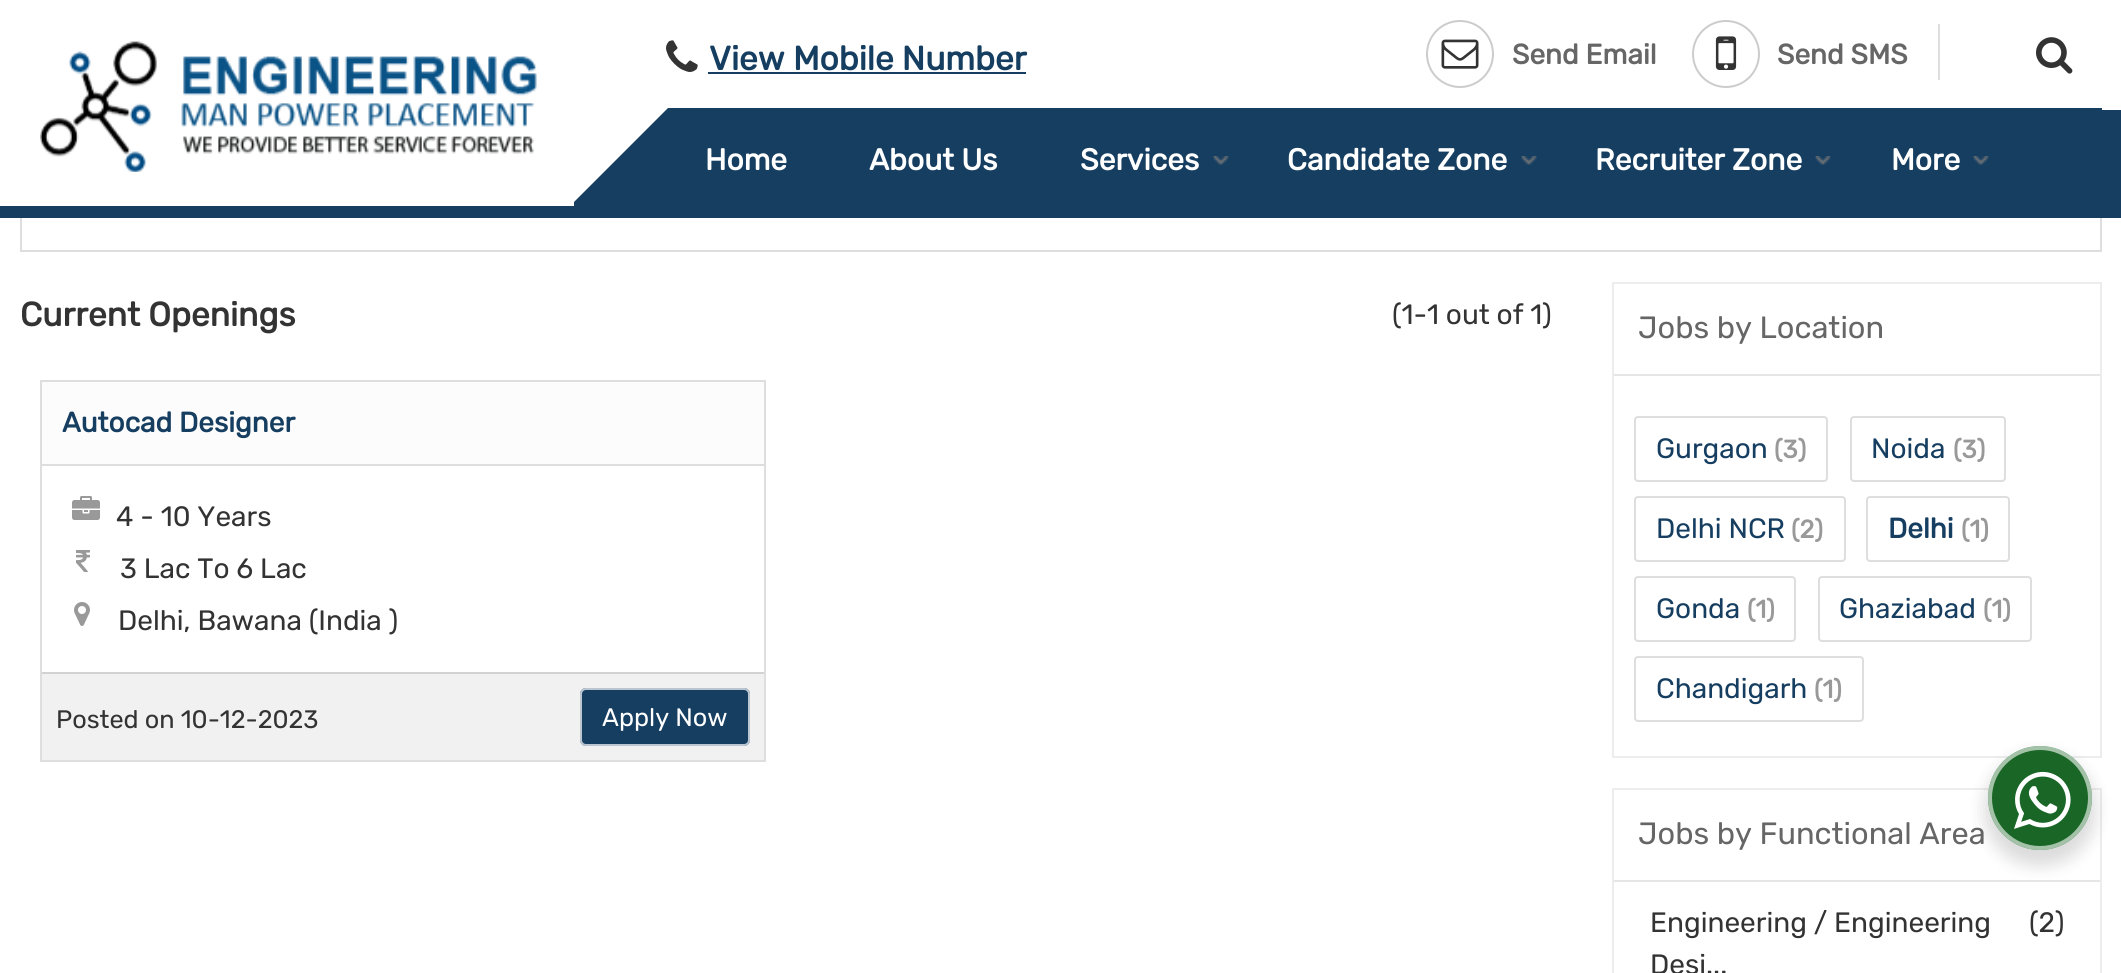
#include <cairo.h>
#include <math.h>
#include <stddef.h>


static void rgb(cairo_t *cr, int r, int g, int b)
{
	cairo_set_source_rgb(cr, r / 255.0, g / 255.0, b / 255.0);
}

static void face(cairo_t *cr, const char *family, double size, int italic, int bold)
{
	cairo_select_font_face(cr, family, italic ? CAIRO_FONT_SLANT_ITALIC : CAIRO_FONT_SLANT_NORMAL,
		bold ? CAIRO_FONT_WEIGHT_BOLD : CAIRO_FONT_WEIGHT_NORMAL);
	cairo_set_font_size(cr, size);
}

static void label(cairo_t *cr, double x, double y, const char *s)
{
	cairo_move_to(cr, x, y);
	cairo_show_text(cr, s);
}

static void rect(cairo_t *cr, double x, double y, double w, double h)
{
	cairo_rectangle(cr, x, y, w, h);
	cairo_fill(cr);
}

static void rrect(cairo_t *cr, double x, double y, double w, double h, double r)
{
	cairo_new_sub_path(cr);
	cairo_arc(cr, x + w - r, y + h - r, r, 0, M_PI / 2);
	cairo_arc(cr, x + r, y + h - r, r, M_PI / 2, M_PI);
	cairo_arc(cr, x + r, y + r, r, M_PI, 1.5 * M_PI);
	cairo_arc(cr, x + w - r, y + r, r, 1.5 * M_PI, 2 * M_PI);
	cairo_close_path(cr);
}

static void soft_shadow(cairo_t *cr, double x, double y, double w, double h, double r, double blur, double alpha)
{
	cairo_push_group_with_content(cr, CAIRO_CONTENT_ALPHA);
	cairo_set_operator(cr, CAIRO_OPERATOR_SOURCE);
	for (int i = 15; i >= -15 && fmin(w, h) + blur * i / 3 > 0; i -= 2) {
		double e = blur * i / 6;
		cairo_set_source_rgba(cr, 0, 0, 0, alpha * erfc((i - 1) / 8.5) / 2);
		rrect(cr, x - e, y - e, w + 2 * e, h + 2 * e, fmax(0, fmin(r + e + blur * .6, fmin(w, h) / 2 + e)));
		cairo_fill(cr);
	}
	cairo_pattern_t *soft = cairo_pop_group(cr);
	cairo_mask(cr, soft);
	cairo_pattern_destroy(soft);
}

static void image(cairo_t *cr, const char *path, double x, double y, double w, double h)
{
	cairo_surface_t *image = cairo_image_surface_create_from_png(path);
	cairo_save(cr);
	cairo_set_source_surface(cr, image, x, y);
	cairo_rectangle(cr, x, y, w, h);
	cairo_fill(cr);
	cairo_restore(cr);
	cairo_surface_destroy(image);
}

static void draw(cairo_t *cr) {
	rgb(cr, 255, 255, 255);
	cairo_paint(cr);
	cairo_rectangle(cr, 21, 67, 2080, 184);
	rgb(cr, 222, 222, 222);
	cairo_stroke(cr);
	rgb(cr, 255, 255, 255);
	rect(cr, 20, 66, 2082, 140);
	rgb(cr, 22, 62, 97);
	rect(cr, 574, 108, 1528, 110);
	rgb(cr, 255, 255, 255);
	cairo_new_path(cr);
	cairo_move_to(cr, 562, 214);
	cairo_line_to(cr, 562, 108);
	cairo_line_to(cr, 668, 108);
	cairo_close_path(cr);
	cairo_fill(cr);
	rgb(cr, 22, 62, 97);
	rect(cr, 0, 206, 574, 12);
	image(cr, "image0.png", 40, 41, 497, 131);
	image(cr, "image1.png", 666, 40, 32, 32);
	face(cr, "Rubik", 33.5, 0, 1);
	label(cr, 709, 70, "View Mobile Number");
	rect(cr, 708, 72, 318, 2);
	cairo_new_path(cr);
	cairo_arc(cr, 1460, 54, 33, 0, 2 * M_PI);
	rgb(cr, 204, 204, 204);
	cairo_stroke(cr);
	image(cr, "image2.png", 1441, 39, 38, 30);
	face(cr, "Rubik", 28, 0, 1);
	rgb(cr, 102, 102, 102);
	label(cr, 1512, 64, "Send Email");
	cairo_new_path(cr);
	cairo_arc(cr, 1726, 54, 33, 0, 2 * M_PI);
	rgb(cr, 204, 204, 204);
	cairo_stroke(cr);
	image(cr, "image3.png", 1715, 36, 22, 34);
	rgb(cr, 102, 102, 102);
	label(cr, 1777, 64, "Send SMS");
	rgb(cr, 222, 222, 222);
	rect(cr, 1938, 24, 2, 56);
	image(cr, "image4.png", 2036, 37, 37, 37);
	face(cr, "Rubik", 30, 0, 1);
	rgb(cr, 255, 255, 255);
	label(cr, 705, 170, "Home");
	label(cr, 869, 170, "About Us");
	label(cr, 1080, 170, "Services");
	image(cr, "image5.png", 1213, 156, 16, 9);
	label(cr, 1287, 170, "Candidate Zone");
	image(cr, "image5.png", 1521, 156, 16, 9);
	label(cr, 1595, 170, "Recruiter Zone");
	image(cr, "image5.png", 1815, 156, 16, 9);
	label(cr, 1891, 170, "More");
	image(cr, "image5.png", 1973, 156, 16, 9);
	rgb(cr, 22, 62, 97);
	rect(cr, 2102, 110, 19, 108);
	face(cr, "Rubik", 33.5, 0, 1);
	rgb(cr, 51, 51, 51);
	label(cr, 20, 326, "Current Openings");
	face(cr, "Rubik Light", 28, 0, 0);
	label(cr, 1392, 324, "(1-1 out of 1)");
	cairo_rectangle(cr, 41, 381, 724, 380);
	rgb(cr, 222, 222, 222);
	cairo_stroke(cr);
	rgb(cr, 252, 252, 252);
	rect(cr, 42, 382, 722, 82);
	face(cr, "Rubik", 28, 0, 1);
	rgb(cr, 22, 62, 97);
	label(cr, 62, 432, "Autocad Designer");
	rgb(cr, 222, 222, 222);
	rect(cr, 42, 464, 722, 2);
	image(cr, "image6.png", 72, 496, 28, 24);
	face(cr, "Rubik Light", 28, 0, 0);
	rgb(cr, 51, 51, 51);
	label(cr, 116, 526, "4 - 10 Years");
	image(cr, "image7.png", 76, 550, 14, 22);
	label(cr, 120, 578, "3 Lac To 6 Lac");
	image(cr, "image8.png", 74, 602, 16, 24);
	label(cr, 118, 630, "Delhi, Bawana (India )");
	rgb(cr, 241, 241, 241);
	rect(cr, 42, 674, 722, 86);
	rgb(cr, 210, 210, 210);
	rect(cr, 42, 672, 722, 2);
	face(cr, "Rubik Light", 25.25, 0, 0);
	rgb(cr, 51, 51, 51);
	label(cr, 56, 728, "Posted on 10-12-2023");
	rgb(cr, 22, 62, 97);
	rrect(cr, 580, 688, 170, 58, 6);
	cairo_fill(cr);
	rrect(cr, 581, 689, 168, 56, 5);
	cairo_set_source_rgba(cr, 1, 1, 1, 0.7);
	cairo_stroke(cr);
	rgb(cr, 255, 255, 255);
	label(cr, 602, 726, "Apply Now");
	cairo_rectangle(cr, 1613, 283, 488, 474);
	rgb(cr, 237, 237, 237);
	cairo_stroke(cr);
	rgb(cr, 230, 230, 230);
	rect(cr, 1614, 374, 486, 2);
	face(cr, "Rubik Light", 30.75, 0, 0);
	rgb(cr, 102, 102, 102);
	label(cr, 1638, 338, "Jobs by Location");
	rrect(cr, 1635, 417, 192, 64, 3);
	rgb(cr, 222, 222, 222);
	cairo_stroke(cr);
	face(cr, "Rubik Light", 28, 0, 0);
	rgb(cr, 22, 62, 97);
	label(cr, 1656, 458, "Gurgaon");
	face(cr, "Rubik", 25.25, 0, 1);
	rgb(cr, 153, 153, 153);
	label(cr, 1774, 458, "(3)");
	rrect(cr, 1851, 417, 154, 64, 3);
	rgb(cr, 222, 222, 222);
	cairo_stroke(cr);
	face(cr, "Rubik Light", 28, 0, 0);
	rgb(cr, 22, 62, 97);
	label(cr, 1871, 458, "Noida");
	face(cr, "Rubik", 25.25, 0, 1);
	rgb(cr, 153, 153, 153);
	label(cr, 1953, 458, "(3)");
	rrect(cr, 1635, 497, 210, 64, 3);
	rgb(cr, 222, 222, 222);
	cairo_stroke(cr);
	face(cr, "Rubik Light", 28, 0, 0);
	rgb(cr, 22, 62, 97);
	label(cr, 1656, 538, "Delhi NCR");
	face(cr, "Rubik", 25.25, 0, 1);
	rgb(cr, 153, 153, 153);
	label(cr, 1791, 538, "(2)");
	rrect(cr, 1867, 497, 142, 64, 3);
	rgb(cr, 222, 222, 222);
	cairo_stroke(cr);
	face(cr, "Rubik", 28, 0, 1);
	rgb(cr, 22, 62, 97);
	label(cr, 1888, 538, "Delhi");
	face(cr, "Rubik", 25.25, 0, 1);
	rgb(cr, 153, 153, 153);
	label(cr, 1961, 538, "(1)");
	rrect(cr, 1635, 577, 160, 64, 3);
	rgb(cr, 222, 222, 222);
	cairo_stroke(cr);
	face(cr, "Rubik Light", 28, 0, 0);
	rgb(cr, 22, 62, 97);
	label(cr, 1656, 618, "Gonda");
	face(cr, "Rubik", 25.25, 0, 1);
	rgb(cr, 153, 153, 153);
	label(cr, 1747, 618, "(1)");
	rrect(cr, 1819, 577, 212, 64, 3);
	rgb(cr, 222, 222, 222);
	cairo_stroke(cr);
	face(cr, "Rubik Light", 28, 0, 0);
	rgb(cr, 22, 62, 97);
	label(cr, 1839, 618, "Ghaziabad");
	face(cr, "Rubik", 25.25, 0, 1);
	rgb(cr, 153, 153, 153);
	label(cr, 1983, 618, "(1)");
	rrect(cr, 1635, 657, 228, 64, 3);
	rgb(cr, 222, 222, 222);
	cairo_stroke(cr);
	face(cr, "Rubik Light", 28, 0, 0);
	rgb(cr, 22, 62, 97);
	label(cr, 1656, 698, "Chandigarh");
	face(cr, "Rubik", 25.25, 0, 1);
	rgb(cr, 153, 153, 153);
	label(cr, 1814, 698, "(1)");
	cairo_rectangle(cr, 1613, 789, 488, 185);
	rgb(cr, 237, 237, 237);
	cairo_stroke(cr);
	rgb(cr, 230, 230, 230);
	rect(cr, 1614, 880, 486, 2);
	face(cr, "Rubik Light", 30.75, 0, 0);
	rgb(cr, 102, 102, 102);
	label(cr, 1638, 844, "Jobs by Functional Area");
	face(cr, "Rubik Light", 28, 0, 0);
	rgb(cr, 51, 51, 51);
	label(cr, 1650, 932, "Engineering / Engineering");
	label(cr, 2029, 932, "(2)");
	label(cr, 1650, 974, "Desi...");
	rgb(cr, 0, 0, 0);
	soft_shadow(cr, 1984, 754, 112, 112, 56, 8, 0.14);
	rgb(cr, 25, 102, 38);
	cairo_arc(cr, 2040, 798, 52, 0, 2 * M_PI);
	cairo_fill(cr);
	cairo_arc(cr, 2040, 798, 50, 0, 2 * M_PI);
	cairo_set_source_rgba(cr, 1, 1, 1, 0.6);
	cairo_set_line_width(cr, 4);
	cairo_stroke(cr);
	image(cr, "image9.png", 2014, 771, 57, 58);
}

int main(void) {
	cairo_surface_t *surface = cairo_image_surface_create(CAIRO_FORMAT_RGB24, 2121, 973);
	cairo_t *cr = cairo_create(surface);
	cairo_font_options_t *options = cairo_font_options_create();
	cairo_font_options_set_hint_metrics(options, CAIRO_HINT_METRICS_OFF);
	cairo_font_options_set_hint_style(options, CAIRO_HINT_STYLE_NONE);
	cairo_set_font_options(cr, options);
	cairo_set_miter_limit(cr, 4);
	draw(cr);
	cairo_surface_write_to_png(surface, "render.png");
	cairo_font_options_destroy(options);
	cairo_destroy(cr);
	cairo_surface_destroy(surface);
	return 0;
}
